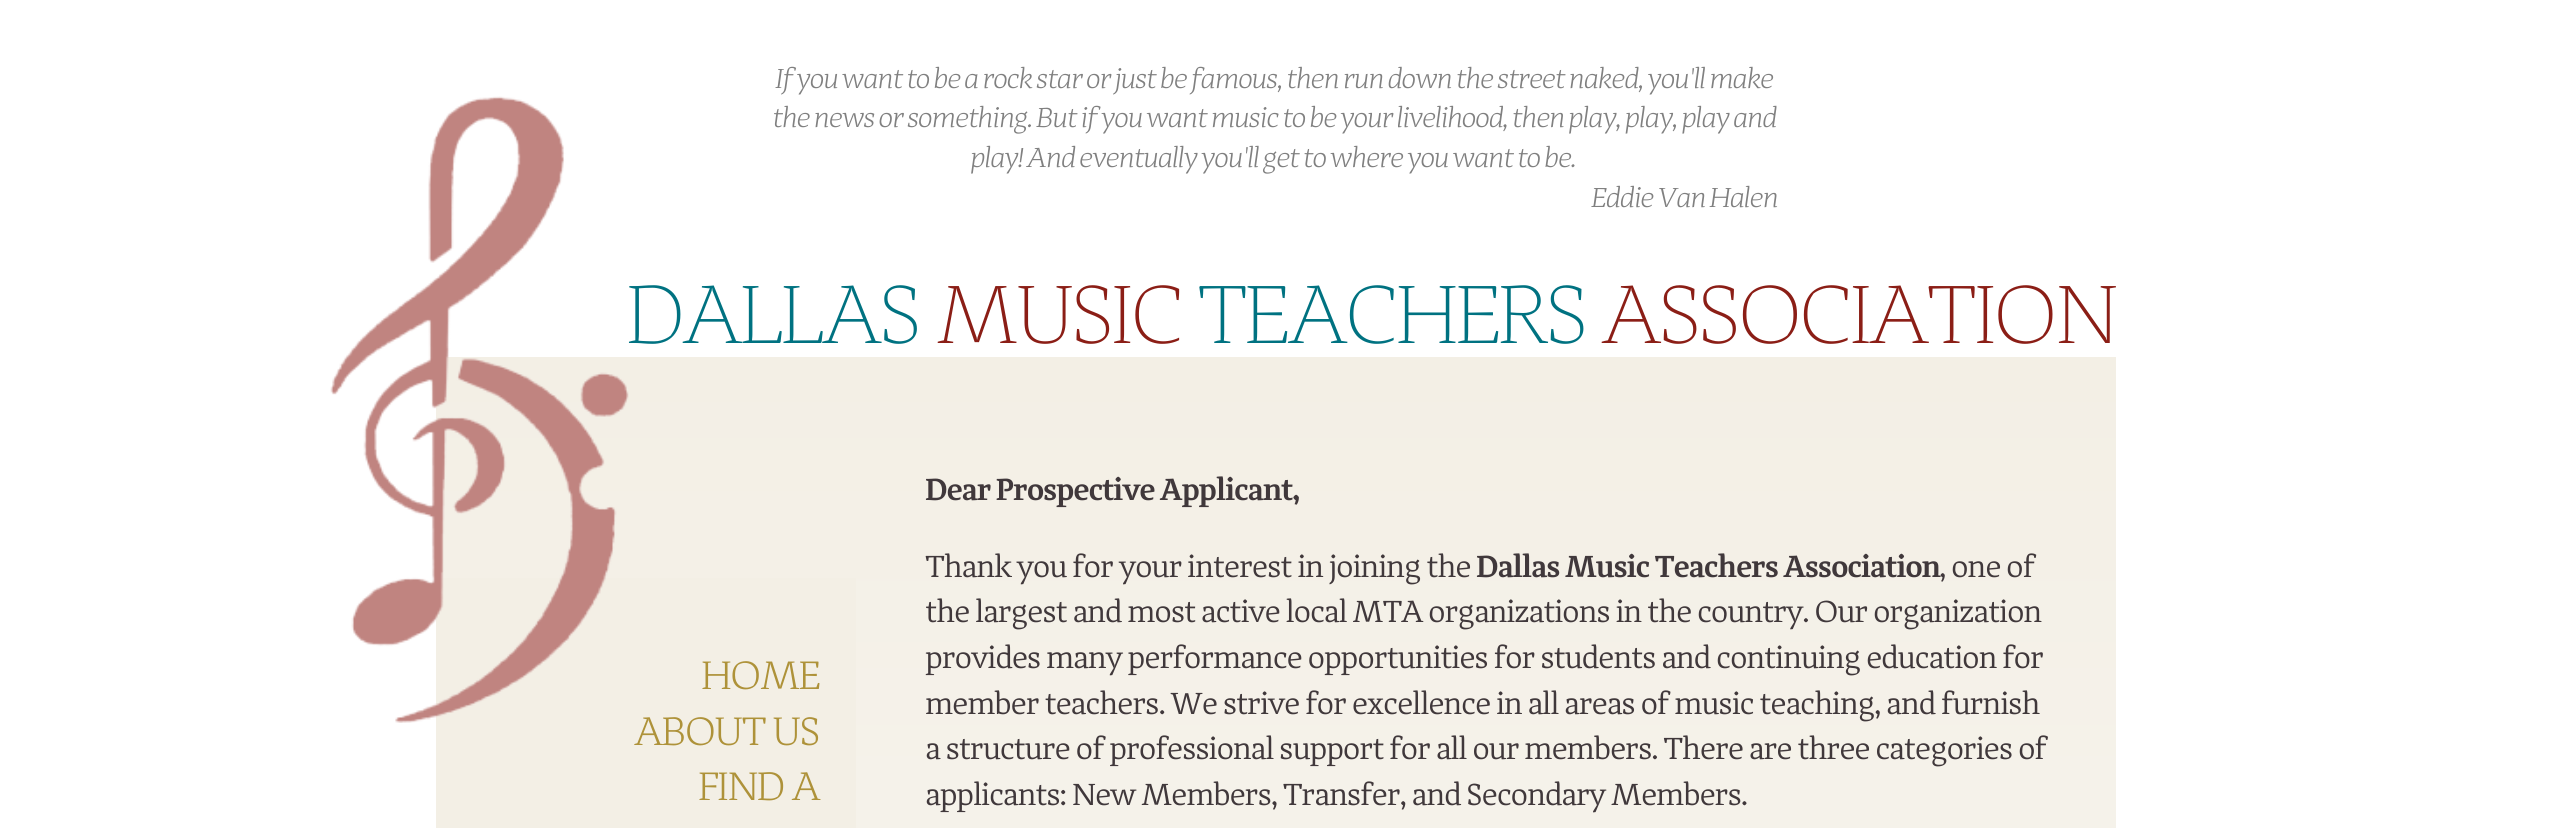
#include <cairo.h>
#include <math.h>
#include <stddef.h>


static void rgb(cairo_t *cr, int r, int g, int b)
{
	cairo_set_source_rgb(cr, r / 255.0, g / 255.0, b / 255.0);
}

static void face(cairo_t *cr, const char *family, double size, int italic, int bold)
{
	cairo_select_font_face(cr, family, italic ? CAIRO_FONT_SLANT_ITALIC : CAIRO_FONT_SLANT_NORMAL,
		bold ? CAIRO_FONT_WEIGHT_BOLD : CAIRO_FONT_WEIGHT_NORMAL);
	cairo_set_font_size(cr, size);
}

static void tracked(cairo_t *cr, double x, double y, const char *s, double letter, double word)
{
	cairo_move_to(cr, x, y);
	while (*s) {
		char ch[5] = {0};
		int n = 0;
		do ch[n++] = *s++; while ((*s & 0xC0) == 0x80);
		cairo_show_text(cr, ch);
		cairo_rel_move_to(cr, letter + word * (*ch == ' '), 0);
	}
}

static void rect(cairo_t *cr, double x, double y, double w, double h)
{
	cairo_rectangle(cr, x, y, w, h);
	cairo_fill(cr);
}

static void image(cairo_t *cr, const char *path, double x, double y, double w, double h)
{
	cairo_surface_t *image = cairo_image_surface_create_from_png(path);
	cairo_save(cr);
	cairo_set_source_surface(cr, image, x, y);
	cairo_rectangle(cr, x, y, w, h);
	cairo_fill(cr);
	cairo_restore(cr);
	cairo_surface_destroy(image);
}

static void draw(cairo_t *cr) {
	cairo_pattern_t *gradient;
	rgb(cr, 255, 255, 255);
	cairo_paint(cr);
	gradient = cairo_pattern_create_linear(1276, 357, 1276, 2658);
	cairo_pattern_add_color_stop_rgba(gradient, 0, 0.953, 0.937, 0.898, 1);
	cairo_pattern_add_color_stop_rgba(gradient, 1, 1, 1, 1, 1);
	cairo_set_source(cr, gradient);
	cairo_pattern_destroy(gradient);
	rect(cr, 436, 357, 1680, 471);
	rgb(cr, 243, 239, 229);
	rect(cr, 436, 578, 420, 250);
	image(cr, "image0.png", 330, 96, 299, 627);
	face(cr, "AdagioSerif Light", 28.35, 1, 0);
	rgb(cr, 128, 128, 128);
	tracked(cr, 777, 88, "If you want to be a rock star or just be famous, then run down the street naked, you'll make", -1.13, 0);
	tracked(cr, 774, 127, "the news or something. But if you want music to be your livelihood, then play, play, play and", -1.13, 0);
	tracked(cr, 972, 167, "play! And eventually you'll get to where you want to be.", -1.13, 0);
	tracked(cr, 1593, 207, "Eddie Van Halen", -1.13, 0);
	face(cr, "AdagioSerif Thin", 85, 0, 0);
	rgb(cr, 0, 114, 129);
	tracked(cr, 626, 343, "DALLAS", -3.4, 0);
	rgb(cr, 139, 30, 22);
	tracked(cr, 935, 343, "MUSIC", -3.4, 0);
	rgb(cr, 0, 114, 129);
	tracked(cr, 1197, 343, "TEACHERS", -3.4, 0);
	rgb(cr, 139, 30, 22);
	tracked(cr, 1601, 343, "ASSOCIATION", -3.4, 0);
	face(cr, "AdagioSerif Light", 41, 0, 0);
	rgb(cr, 174, 146, 57);
	tracked(cr, 701, 689, "HOME", -1.75, 0);
	tracked(cr, 634, 745, "ABOUT US", -1.75, 0);
	tracked(cr, 698, 800, "FIND A", -1.75, 0);
	face(cr, "AdagioSerif SemiBold", 31.5, 0, 0);
	rgb(cr, 64, 56, 59);
	tracked(cr, 925, 500, "Dear Prospective Applicant,", -1.25, 0);
	face(cr, "AdagioSerif", 31.5, 0, 0);
	tracked(cr, 925, 577, "Thank you for your interest in joining the", -1.25, 0);
	face(cr, "AdagioSerif SemiBold", 31.5, 0, 0);
	tracked(cr, 1476, 577, "Dallas Music Teachers Association", -1.25, 0);
	face(cr, "AdagioSerif", 31.5, 0, 0);
	tracked(cr, 1939, 577, ", one of", -1.25, 0);
	tracked(cr, 925, 622, "the largest and most active local MTA organizations in the country. Our organization", -1.25, 0);
	tracked(cr, 925, 668, "provides many performance opportunities for students and continuing education for", -1.25, 0);
	tracked(cr, 925, 714, "member teachers. We strive for excellence in all areas of music teaching, and furnish", -1.25, 0);
	tracked(cr, 925, 759, "a structure of professional support for all our members. There are three categories of", -1.25, 0);
	tracked(cr, 925, 805, "applicants: New Members, Transfer, and Secondary Members.", -1.25, 0);
}

int main(void) {
	cairo_surface_t *surface = cairo_image_surface_create(CAIRO_FORMAT_RGB24, 2549, 828);
	cairo_t *cr = cairo_create(surface);
	cairo_font_options_t *options = cairo_font_options_create();
	cairo_font_options_set_hint_metrics(options, CAIRO_HINT_METRICS_OFF);
	cairo_font_options_set_hint_style(options, CAIRO_HINT_STYLE_NONE);
	cairo_set_font_options(cr, options);
	cairo_set_miter_limit(cr, 4);
	draw(cr);
	cairo_surface_write_to_png(surface, "render.png");
	cairo_font_options_destroy(options);
	cairo_destroy(cr);
	cairo_surface_destroy(surface);
	return 0;
}
